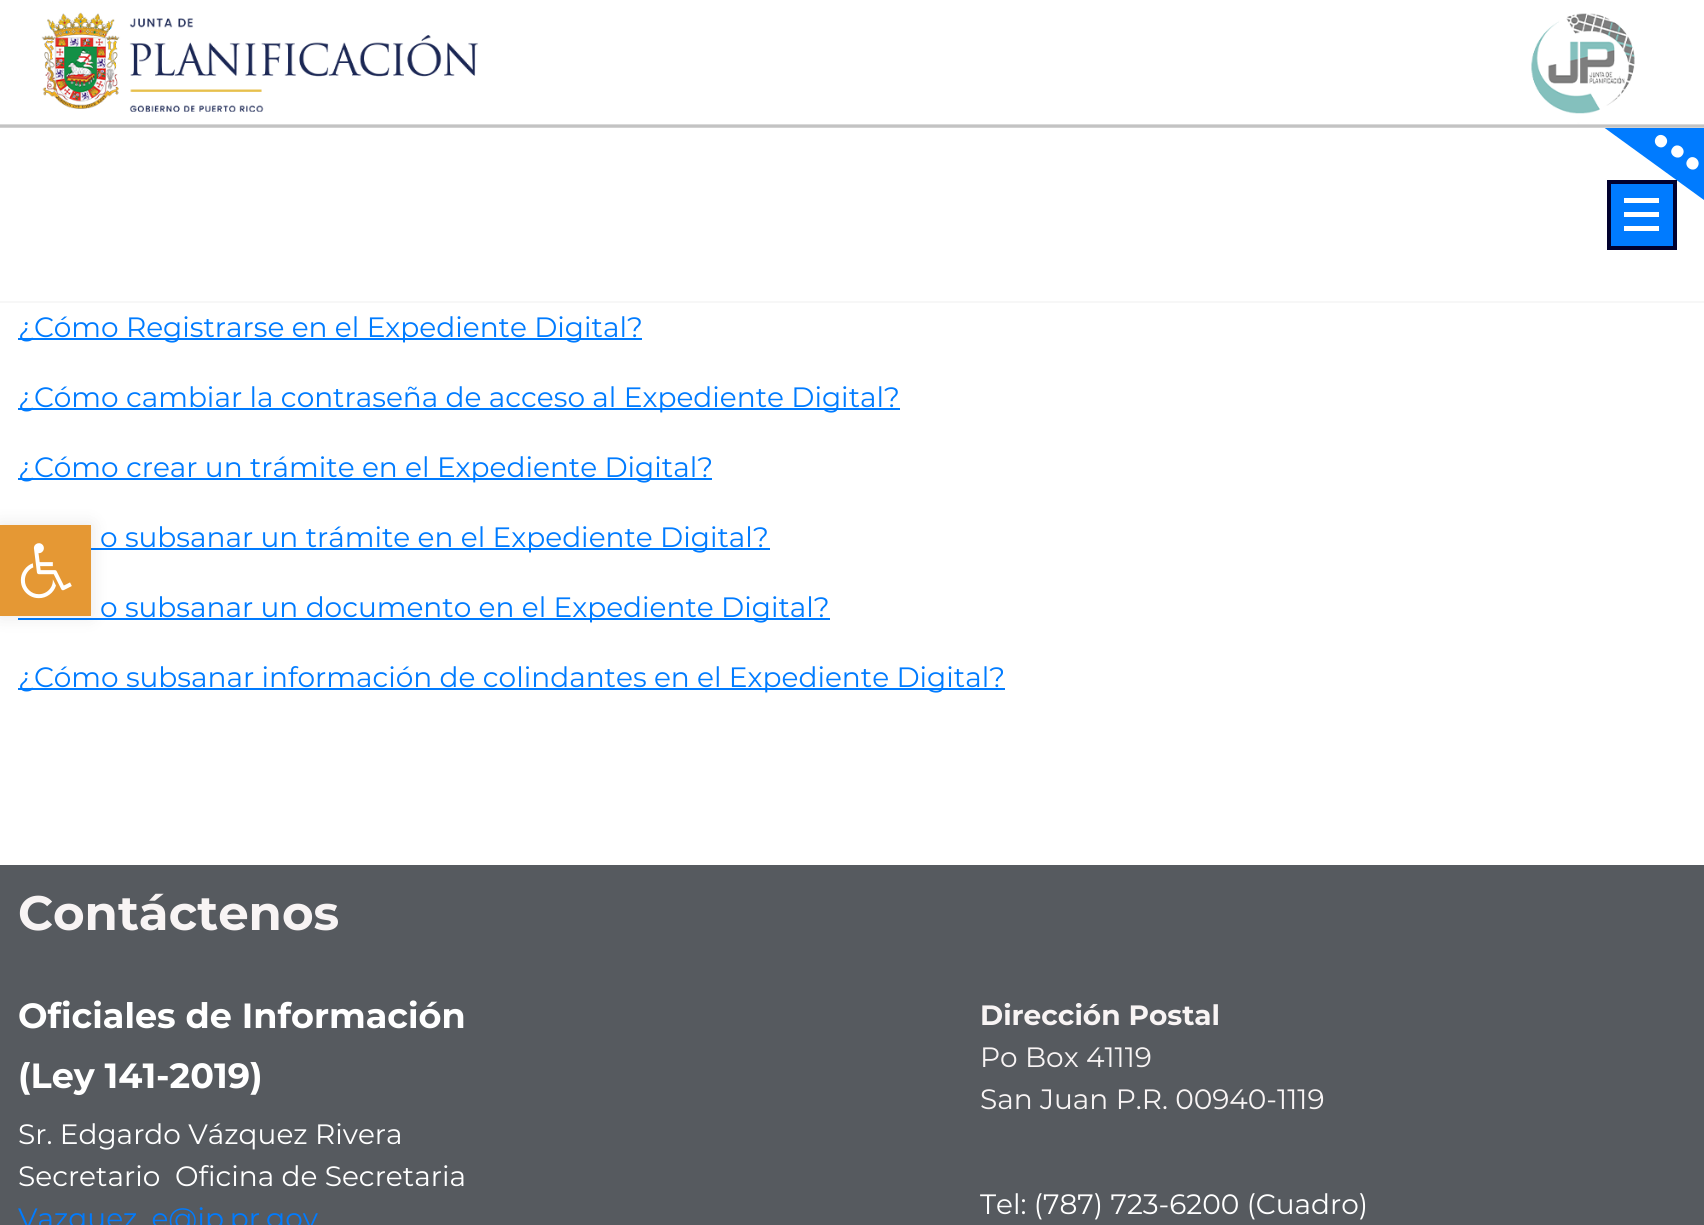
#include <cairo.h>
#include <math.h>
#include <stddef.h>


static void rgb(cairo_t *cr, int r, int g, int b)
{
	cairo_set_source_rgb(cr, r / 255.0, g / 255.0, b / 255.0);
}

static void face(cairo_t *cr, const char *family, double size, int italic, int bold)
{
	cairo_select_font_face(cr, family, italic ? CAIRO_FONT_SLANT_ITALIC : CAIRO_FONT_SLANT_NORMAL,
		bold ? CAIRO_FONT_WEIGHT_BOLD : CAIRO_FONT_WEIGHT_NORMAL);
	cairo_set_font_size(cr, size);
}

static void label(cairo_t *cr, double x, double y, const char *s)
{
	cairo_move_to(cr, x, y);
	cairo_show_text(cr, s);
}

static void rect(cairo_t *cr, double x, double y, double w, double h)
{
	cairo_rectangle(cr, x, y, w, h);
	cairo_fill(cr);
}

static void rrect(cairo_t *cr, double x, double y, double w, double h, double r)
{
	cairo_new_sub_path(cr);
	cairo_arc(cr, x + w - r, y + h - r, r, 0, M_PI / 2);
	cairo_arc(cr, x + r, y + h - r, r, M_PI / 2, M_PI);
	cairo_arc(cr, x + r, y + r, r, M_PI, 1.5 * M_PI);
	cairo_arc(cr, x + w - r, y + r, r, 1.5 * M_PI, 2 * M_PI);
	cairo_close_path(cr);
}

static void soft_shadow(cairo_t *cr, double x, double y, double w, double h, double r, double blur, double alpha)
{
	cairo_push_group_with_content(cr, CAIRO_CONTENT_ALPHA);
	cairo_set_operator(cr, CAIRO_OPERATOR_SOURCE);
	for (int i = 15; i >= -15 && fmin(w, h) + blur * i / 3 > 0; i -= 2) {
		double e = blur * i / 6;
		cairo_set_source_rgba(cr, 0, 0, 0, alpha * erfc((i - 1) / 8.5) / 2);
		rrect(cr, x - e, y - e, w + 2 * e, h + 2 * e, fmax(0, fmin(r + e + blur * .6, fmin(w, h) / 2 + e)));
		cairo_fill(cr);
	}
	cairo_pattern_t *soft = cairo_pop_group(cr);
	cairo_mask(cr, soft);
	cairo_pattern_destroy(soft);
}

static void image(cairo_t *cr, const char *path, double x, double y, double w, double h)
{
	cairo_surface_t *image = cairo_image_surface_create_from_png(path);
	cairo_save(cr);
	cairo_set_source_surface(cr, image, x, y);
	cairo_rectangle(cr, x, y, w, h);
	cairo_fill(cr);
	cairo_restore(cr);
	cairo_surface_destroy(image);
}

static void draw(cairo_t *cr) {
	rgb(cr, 255, 255, 255);
	cairo_paint(cr);
	image(cr, "image0.png", 0, 12, 1704, 116);
	rgb(cr, 247, 247, 247);
	rect(cr, 0, 301, 1704, 2);
	cairo_save(cr);
	cairo_rectangle(cr, 1579, 128, 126, 91);
	cairo_clip(cr);
	rgb(cr, 0, 123, 255);
	cairo_new_path(cr);
	cairo_move_to(cr, 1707, -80);
	cairo_line_to(cr, 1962, 106);
	cairo_line_to(cr, 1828, 290);
	cairo_line_to(cr, 1573, 105);
	cairo_close_path(cr);
	cairo_fill(cr);
	cairo_restore(cr);
	rgb(cr, 255, 255, 255);
	cairo_new_path(cr);
	cairo_move_to(cr, 1672.5, 148);
	cairo_curve_to(cr, 1677, 141.5, 1687, 148.5, 1682.5, 155);
	cairo_curve_to(cr, 1678, 161.5, 1667.5, 154.5, 1672.5, 148);
	cairo_close_path(cr);
	cairo_move_to(cr, 1656, 137.5);
	cairo_curve_to(cr, 1660.5, 131, 1670.5, 138, 1666, 144.5);
	cairo_curve_to(cr, 1661.5, 151.5, 1651.5, 144.5, 1656, 137.5);
	cairo_close_path(cr);
	cairo_move_to(cr, 1687.5, 160);
	cairo_curve_to(cr, 1692, 153, 1702, 160, 1697.5, 167);
	cairo_curve_to(cr, 1693, 173.5, 1683, 166.5, 1687.5, 160);
	cairo_close_path(cr);
	cairo_fill(cr);
	rgb(cr, 0, 123, 255);
	cairo_rectangle(cr, 1609, 182, 66, 66);
	cairo_fill_preserve(cr);
	rgb(cr, 1, 1, 47);
	cairo_set_line_width(cr, 4);
	cairo_stroke(cr);
	rgb(cr, 255, 255, 255);
	rect(cr, 1624, 198, 35, 5);
	rect(cr, 1624, 212, 35, 5);
	rect(cr, 1624, 226, 35, 5);
	rgb(cr, 0, 123, 255);
	rect(cr, 18, 338, 624, 2);
	face(cr, "Montserrat", 28, 0, 0);
	label(cr, 18, 337, "¿Cómo Registrarse en el Expediente Digital?");
	rect(cr, 18, 408, 882, 2);
	label(cr, 18, 407, "¿Cómo cambiar la contraseña de acceso al Expediente Digital?");
	rect(cr, 18, 478, 694, 2);
	label(cr, 18, 477, "¿Cómo crear un trámite en el Expediente Digital?");
	rect(cr, 91, 548, 679, 2);
	label(cr, 100, 547, "o subsanar un trámite en el Expediente Digital?");
	rect(cr, 18, 618, 812, 2);
	label(cr, 100, 617, "o subsanar un documento en el Expediente Digital?");
	rect(cr, 18, 688, 987, 2);
	label(cr, 18, 687, "¿Cómo subsanar información de colindantes en el Expediente Digital?");
	rgb(cr, 86, 90, 95);
	rect(cr, 0, 865, 1704, 360);
	face(cr, "Montserrat", 48.25, 0, 1);
	rgb(cr, 248, 244, 244);
	label(cr, 18, 930, "Contáctenos");
	face(cr, "Montserrat", 35, 0, 1);
	rgb(cr, 255, 255, 255);
	label(cr, 18, 1028, "Oficiales de Información");
	label(cr, 18, 1088, "(Ley 141-2019)");
	face(cr, "Montserrat", 28, 0, 0);
	label(cr, 18, 1144, "Sr. Edgardo Vázquez Rivera");
	label(cr, 18, 1186, "Secretario  Oficina de Secretaria");
	rgb(cr, 0, 123, 255);
	label(cr, 18, 1228, "Vazquez_e@jp.pr.gov");
	face(cr, "Montserrat", 28, 0, 1);
	rgb(cr, 248, 244, 244);
	label(cr, 980, 1025, "Dirección Postal");
	face(cr, "Montserrat", 28, 0, 0);
	label(cr, 980, 1067, "Po Box 41119");
	label(cr, 980, 1109, "San Juan P.R. 00940-1119");
	rgb(cr, 255, 255, 255);
	label(cr, 980, 1214, "Tel: (787) 723-6200 (Cuadro)");
	rgb(cr, 0, 0, 0);
	soft_shadow(cr, 0, 525, 91, 91, 0, 9, 0.1);
	rgb(cr, 229, 152, 52);
	rect(cr, 0, 525, 91, 91);
	image(cr, "image1.png", 20, 543, 52, 56);
}

int main(void) {
	cairo_surface_t *surface = cairo_image_surface_create(CAIRO_FORMAT_RGB24, 1704, 1225);
	cairo_t *cr = cairo_create(surface);
	cairo_font_options_t *options = cairo_font_options_create();
	cairo_font_options_set_hint_metrics(options, CAIRO_HINT_METRICS_OFF);
	cairo_font_options_set_hint_style(options, CAIRO_HINT_STYLE_NONE);
	cairo_set_font_options(cr, options);
	cairo_set_miter_limit(cr, 4);
	draw(cr);
	cairo_surface_write_to_png(surface, "render.png");
	cairo_font_options_destroy(options);
	cairo_destroy(cr);
	cairo_surface_destroy(surface);
	return 0;
}
